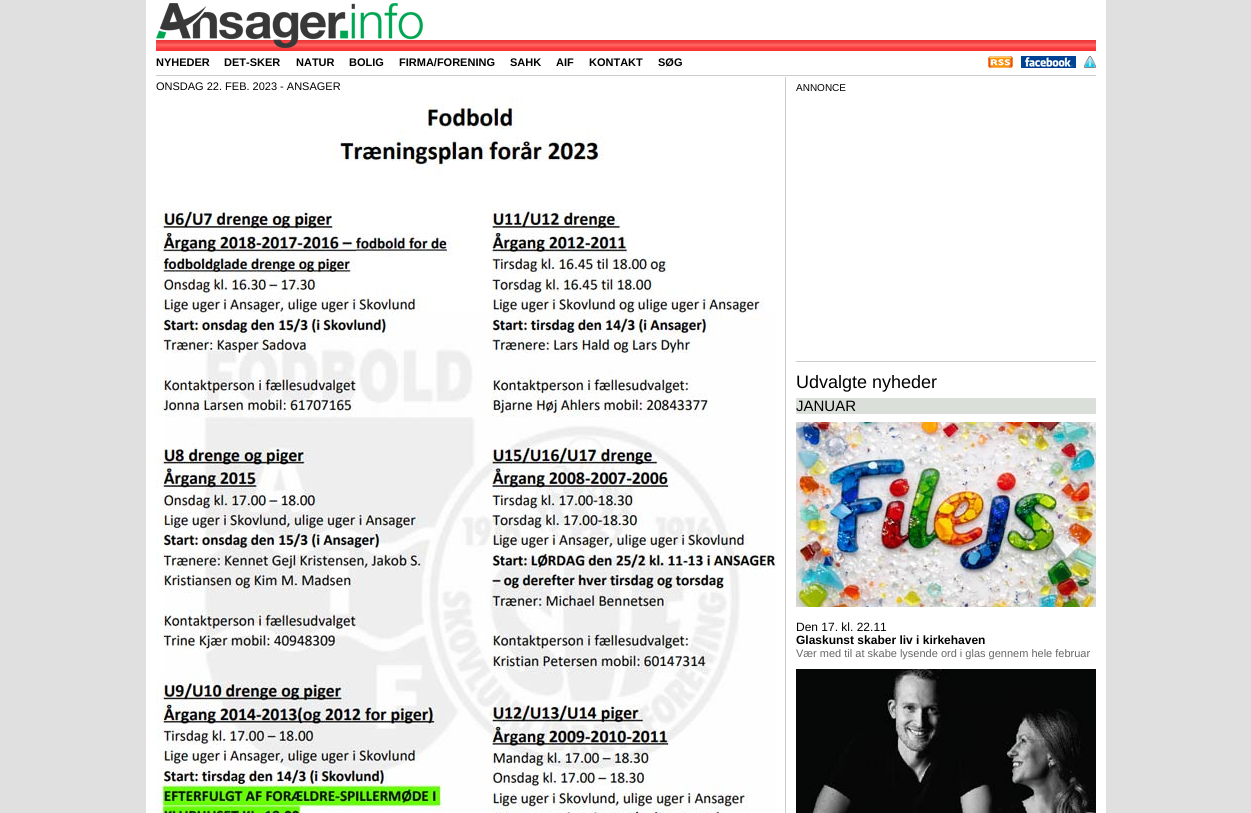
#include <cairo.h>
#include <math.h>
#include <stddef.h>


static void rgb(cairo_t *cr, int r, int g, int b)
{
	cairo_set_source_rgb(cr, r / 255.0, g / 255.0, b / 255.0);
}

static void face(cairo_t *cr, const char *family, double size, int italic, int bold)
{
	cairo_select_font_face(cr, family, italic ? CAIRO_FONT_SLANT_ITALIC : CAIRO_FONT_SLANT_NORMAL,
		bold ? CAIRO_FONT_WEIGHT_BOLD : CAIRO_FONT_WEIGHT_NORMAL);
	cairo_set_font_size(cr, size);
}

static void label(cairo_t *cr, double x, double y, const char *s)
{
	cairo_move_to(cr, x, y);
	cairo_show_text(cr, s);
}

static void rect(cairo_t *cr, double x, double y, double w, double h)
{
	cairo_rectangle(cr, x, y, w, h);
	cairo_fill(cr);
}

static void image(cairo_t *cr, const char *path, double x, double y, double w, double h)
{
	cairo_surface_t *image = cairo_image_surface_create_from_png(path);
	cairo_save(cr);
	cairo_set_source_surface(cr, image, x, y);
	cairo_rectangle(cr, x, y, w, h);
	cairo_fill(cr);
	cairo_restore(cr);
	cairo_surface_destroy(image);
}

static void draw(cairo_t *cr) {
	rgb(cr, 224, 224, 224);
	cairo_paint(cr);
	rgb(cr, 255, 255, 255);
	rect(cr, 146, 0, 960, 813);
	image(cr, "image0.png", 156, 40, 940, 11);
	image(cr, "image1.png", 156, 3, 267, 45);
	face(cr, "Liberation Sans", 11, 0, 1);
	rgb(cr, 0, 0, 0);
	label(cr, 156, 66, "NYHEDER");
	label(cr, 224, 66, "DET-SKER");
	label(cr, 296, 66, "NATUR");
	label(cr, 349, 66, "BOLIG");
	label(cr, 399, 66, "FIRMA/FORENING");
	label(cr, 510, 66, "SAHK");
	label(cr, 556, 66, "AIF");
	label(cr, 589, 66, "KONTAKT");
	label(cr, 658, 66, "SØG");
	image(cr, "image2.png", 988, 56, 25, 12);
	image(cr, "image3.png", 1021, 56, 55, 12);
	image(cr, "image4.png", 1084, 56, 12, 12);
	rgb(cr, 204, 204, 204);
	rect(cr, 156, 75, 940, 1);
	rect(cr, 785, 77, 1, 736);
	face(cr, "Liberation Sans", 11, 0, 0);
	rgb(cr, 0, 0, 0);
	label(cr, 156, 90, "ONSDAG 22. FEB. 2023 - ANSAGER");
	image(cr, "image5.png", 156, 97, 620, 716);
	face(cr, "Liberation Sans", 10, 0, 0);
	label(cr, 796, 91, "ANNONCE");
	rgb(cr, 204, 204, 204);
	rect(cr, 796, 361, 300, 1);
	face(cr, "Liberation Sans", 18, 0, 0);
	rgb(cr, 0, 0, 0);
	label(cr, 796, 388, "Udvalgte nyheder");
	rgb(cr, 219, 223, 217);
	rect(cr, 796, 398, 300, 16);
	face(cr, "Liberation Sans", 15, 0, 0);
	rgb(cr, 0, 0, 0);
	label(cr, 796, 411, "JANUAR");
	image(cr, "image6.png", 796, 422, 300, 185);
	face(cr, "Liberation Sans", 12, 0, 0);
	label(cr, 796, 631, "Den 17. kl. 22.11");
	face(cr, "Liberation Sans", 12, 0, 1);
	label(cr, 796, 644, "Glaskunst skaber liv i kirkehaven");
	face(cr, "Liberation Sans", 11, 0, 0);
	rgb(cr, 102, 102, 102);
	label(cr, 796, 657, "Vær med til at skabe lysende ord i glas gennem hele februar");
	image(cr, "image7.png", 796, 669, 300, 144);
}

int main(void) {
	cairo_surface_t *surface = cairo_image_surface_create(CAIRO_FORMAT_RGB24, 1251, 813);
	cairo_t *cr = cairo_create(surface);
	cairo_font_options_t *options = cairo_font_options_create();
	cairo_font_options_set_hint_metrics(options, CAIRO_HINT_METRICS_OFF);
	cairo_font_options_set_hint_style(options, CAIRO_HINT_STYLE_NONE);
	cairo_set_font_options(cr, options);
	cairo_set_miter_limit(cr, 4);
	draw(cr);
	cairo_surface_write_to_png(surface, "render.png");
	cairo_font_options_destroy(options);
	cairo_destroy(cr);
	cairo_surface_destroy(surface);
	return 0;
}
